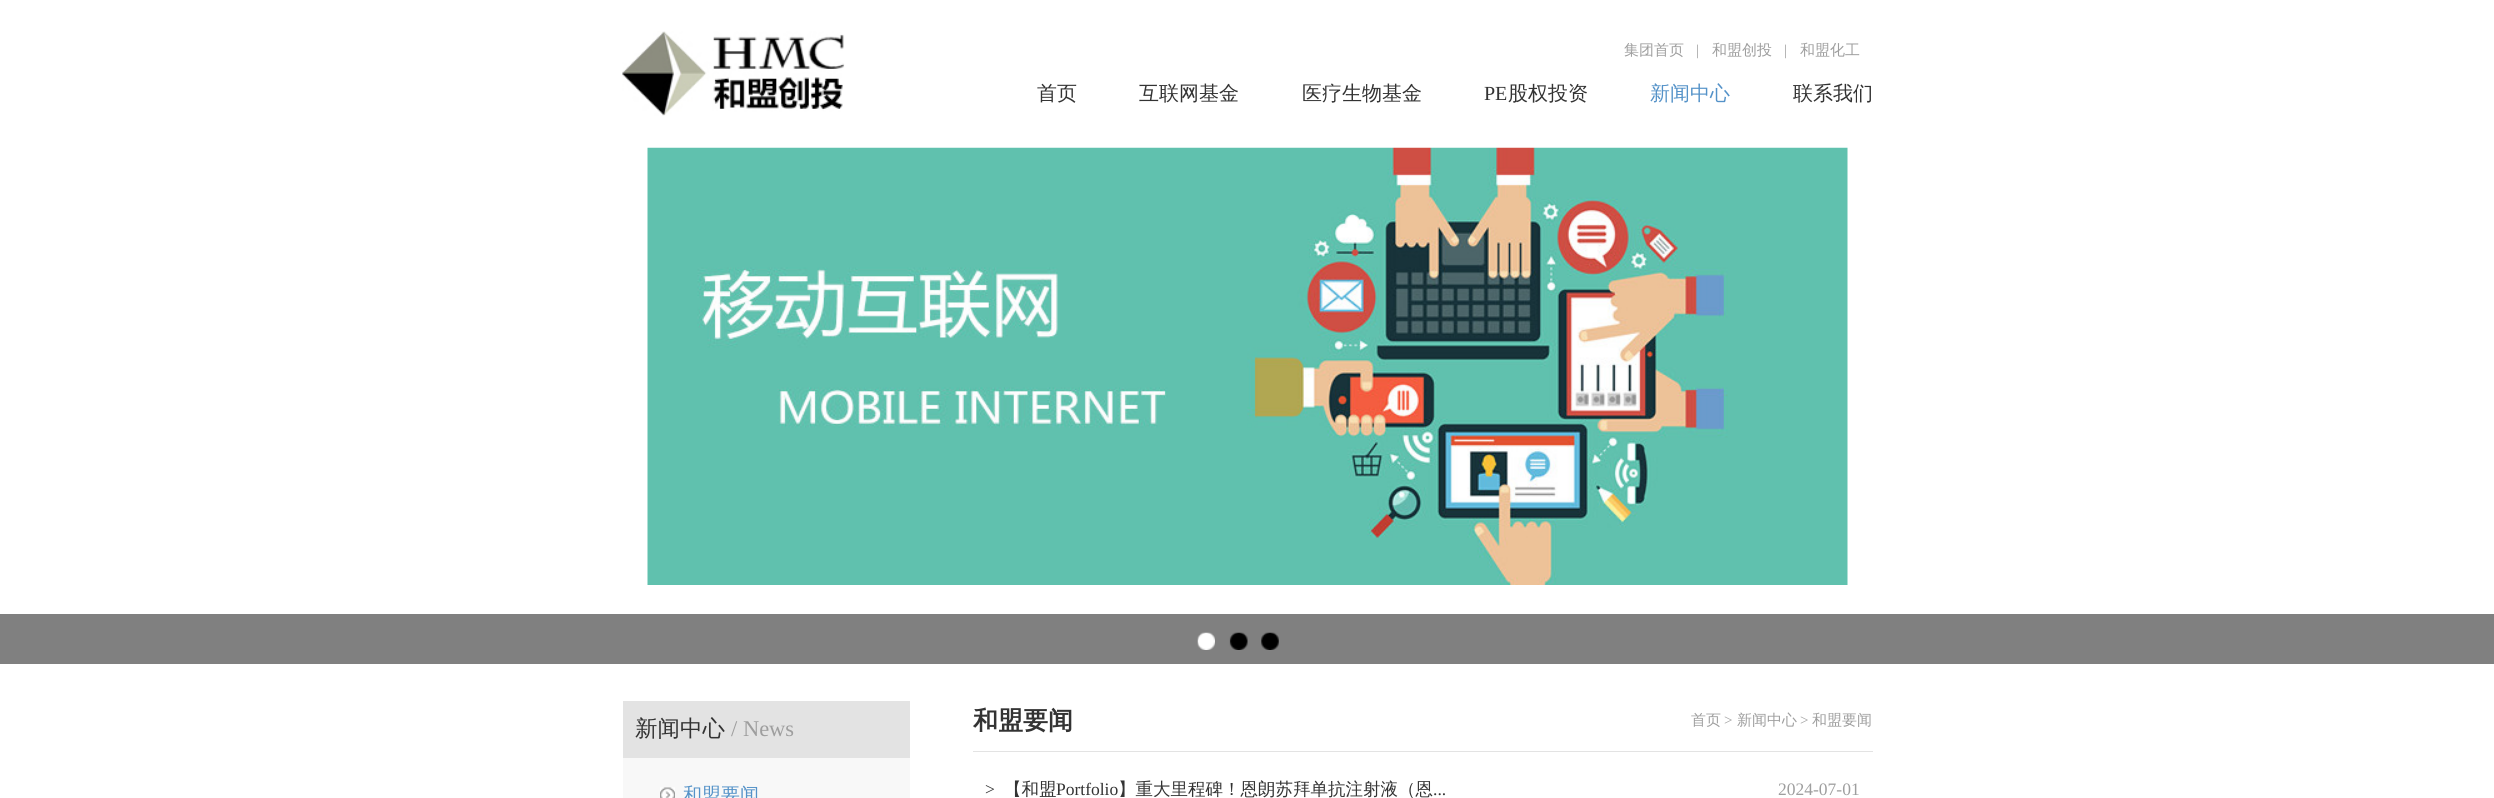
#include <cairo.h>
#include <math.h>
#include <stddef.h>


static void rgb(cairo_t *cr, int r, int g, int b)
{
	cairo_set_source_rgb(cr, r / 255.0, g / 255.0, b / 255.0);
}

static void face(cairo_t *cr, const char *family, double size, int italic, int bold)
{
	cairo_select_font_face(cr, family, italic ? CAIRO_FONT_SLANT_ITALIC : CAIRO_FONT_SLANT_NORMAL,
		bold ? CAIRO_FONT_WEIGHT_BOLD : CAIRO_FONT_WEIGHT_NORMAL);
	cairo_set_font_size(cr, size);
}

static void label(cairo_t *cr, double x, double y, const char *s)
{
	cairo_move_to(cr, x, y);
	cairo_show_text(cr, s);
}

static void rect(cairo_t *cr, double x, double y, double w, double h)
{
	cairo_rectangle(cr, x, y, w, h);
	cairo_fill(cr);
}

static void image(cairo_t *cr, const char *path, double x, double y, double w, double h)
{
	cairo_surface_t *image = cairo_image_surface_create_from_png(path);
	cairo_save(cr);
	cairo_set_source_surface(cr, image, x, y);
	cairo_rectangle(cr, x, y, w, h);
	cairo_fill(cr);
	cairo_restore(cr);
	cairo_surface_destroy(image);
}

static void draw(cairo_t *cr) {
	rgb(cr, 255, 255, 255);
	cairo_paint(cr);
	image(cr, "image0.png", 622, 31, 223, 85);
	face(cr, "WenQuanYi Zen Hei Medium", 15, 0, 0);
	rgb(cr, 158, 158, 158);
	label(cr, 1624, 55, "集团首页");
	face(cr, "Liberation Serif", 15, 0, 0);
	label(cr, 1696, 55, "|");
	face(cr, "WenQuanYi Zen Hei Medium", 15, 0, 0);
	label(cr, 1712, 55, "和盟创投");
	face(cr, "Liberation Serif", 15, 0, 0);
	label(cr, 1784, 55, "|");
	face(cr, "WenQuanYi Zen Hei Medium", 15, 0, 0);
	label(cr, 1800, 55, "和盟化工");
	face(cr, "WenQuanYi Zen Hei Medium", 20, 0, 0);
	rgb(cr, 51, 51, 51);
	label(cr, 1037, 100, "首页");
	label(cr, 1139, 100, "互联网基金");
	label(cr, 1302, 100, "医疗生物基金");
	face(cr, "Liberation Serif", 20, 0, 0);
	label(cr, 1484, 100, "PE");
	face(cr, "WenQuanYi Zen Hei Medium", 20, 0, 0);
	label(cr, 1508, 100, "股权投资");
	rgb(cr, 84, 146, 200);
	label(cr, 1650, 100, "新闻中心");
	rgb(cr, 51, 51, 51);
	label(cr, 1793, 100, "联系我们");
	image(cr, "image1.png", 647, 147, 1201, 438);
	rgb(cr, 128, 128, 128);
	rect(cr, 0, 614, 2494, 50);
	image(cr, "image2.png", 1197, 632, 18, 18);
	image(cr, "image3.png", 1229, 632, 19, 18);
	image(cr, "image4.png", 1261, 632, 18, 18);
	rgb(cr, 248, 248, 248);
	rect(cr, 623, 758, 287, 40);
	rgb(cr, 227, 227, 227);
	rect(cr, 623, 701, 287, 57);
	face(cr, "WenQuanYi Zen Hei Medium", 22.5, 0, 0);
	rgb(cr, 51, 51, 51);
	label(cr, 635, 736, "新闻中心");
	face(cr, "Liberation Serif", 22.5, 0, 0);
	rgb(cr, 158, 158, 158);
	label(cr, 731, 736, "/ News");
	image(cr, "image5.png", 660, 787, 15, 11);
	face(cr, "WenQuanYi Zen Hei Medium", 19, 0, 0);
	rgb(cr, 84, 146, 200);
	label(cr, 683, 801, "和盟要闻");
	rgb(cr, 227, 227, 227);
	rect(cr, 973, 751, 900, 1);
	face(cr, "WenQuanYi Zen Hei", 25, 0, 1);
	rgb(cr, 51, 51, 51);
	label(cr, 973, 729, "和盟要闻");
	face(cr, "WenQuanYi Zen Hei Medium", 15, 0, 0);
	rgb(cr, 158, 158, 158);
	label(cr, 1691, 725, "首页");
	face(cr, "Liberation Serif", 15, 0, 0);
	label(cr, 1724, 725, ">");
	face(cr, "WenQuanYi Zen Hei Medium", 15, 0, 0);
	label(cr, 1737, 725, "新闻中心");
	face(cr, "Liberation Serif", 15, 0, 0);
	label(cr, 1800, 725, ">");
	face(cr, "WenQuanYi Zen Hei Medium", 15, 0, 0);
	label(cr, 1812, 725, "和盟要闻");
	face(cr, "Liberation Serif", 17.5, 0, 0);
	rgb(cr, 51, 51, 51);
	label(cr, 985, 795, ">");
	face(cr, "WenQuanYi Zen Hei Medium", 17.5, 0, 0);
	label(cr, 1004, 795, "【和盟");
	face(cr, "Liberation Serif", 17.5, 0, 0);
	label(cr, 1056, 795, "Portfolio");
	face(cr, "WenQuanYi Zen Hei Medium", 17.5, 0, 0);
	label(cr, 1118, 795, "】重大里程碑！恩朗苏拜单抗注射液（恩");
	face(cr, "Liberation Serif", 17.5, 0, 0);
	rgb(cr, 158, 158, 158);
	label(cr, 1778, 795, "2024-07-01");
	rgb(cr, 51, 51, 51);
	label(cr, 1433, 795, "...");
}

int main(void) {
	cairo_surface_t *surface = cairo_image_surface_create(CAIRO_FORMAT_RGB24, 2494, 798);
	cairo_t *cr = cairo_create(surface);
	cairo_font_options_t *options = cairo_font_options_create();
	cairo_font_options_set_hint_metrics(options, CAIRO_HINT_METRICS_OFF);
	cairo_font_options_set_hint_style(options, CAIRO_HINT_STYLE_NONE);
	cairo_set_font_options(cr, options);
	cairo_set_miter_limit(cr, 4);
	draw(cr);
	cairo_surface_write_to_png(surface, "render.png");
	cairo_font_options_destroy(options);
	cairo_destroy(cr);
	cairo_surface_destroy(surface);
	return 0;
}
